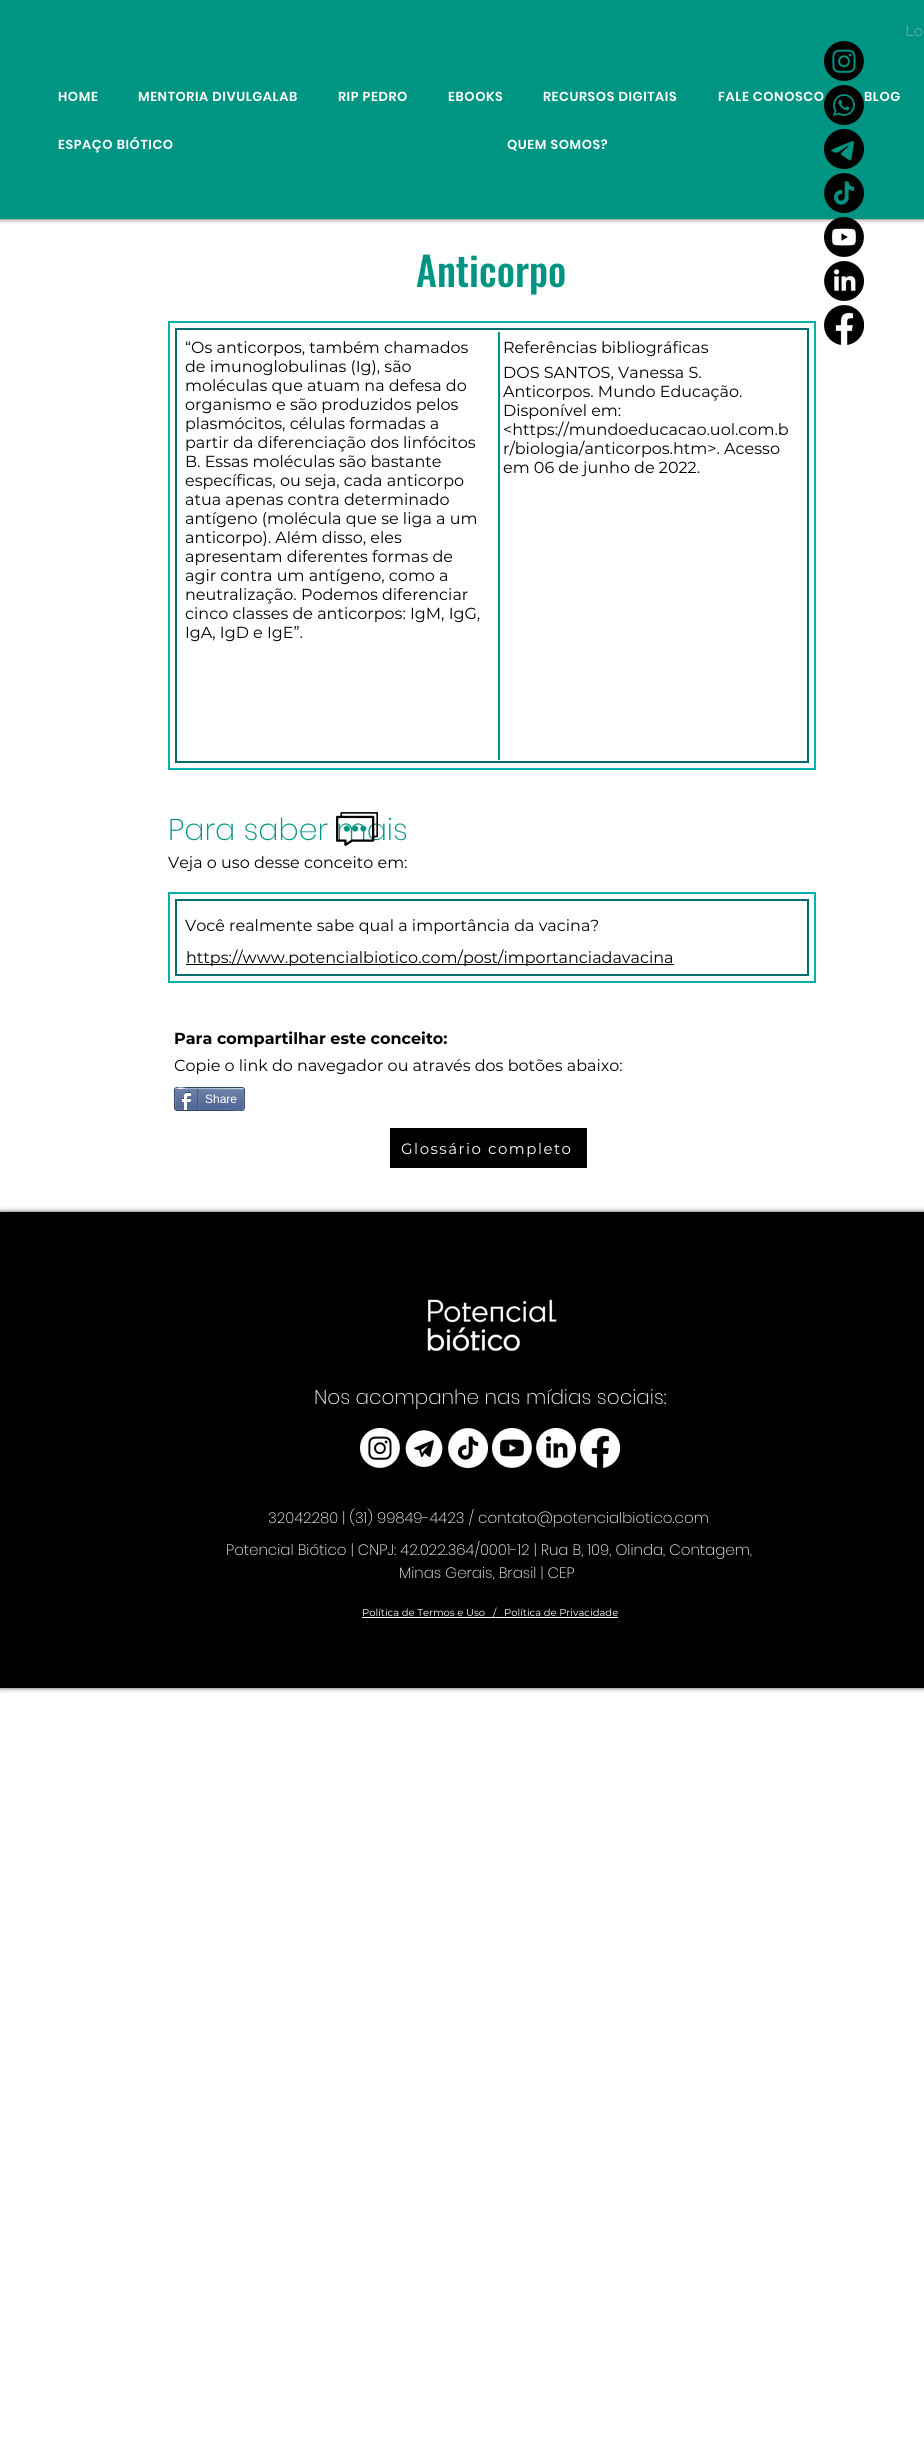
#include <cairo.h>
#include <math.h>
#include <stddef.h>


static void rgb(cairo_t *cr, int r, int g, int b)
{
	cairo_set_source_rgb(cr, r / 255.0, g / 255.0, b / 255.0);
}

static void face(cairo_t *cr, const char *family, double size, int italic, int bold)
{
	cairo_select_font_face(cr, family, italic ? CAIRO_FONT_SLANT_ITALIC : CAIRO_FONT_SLANT_NORMAL,
		bold ? CAIRO_FONT_WEIGHT_BOLD : CAIRO_FONT_WEIGHT_NORMAL);
	cairo_set_font_size(cr, size);
}

static void label(cairo_t *cr, double x, double y, const char *s)
{
	cairo_move_to(cr, x, y);
	cairo_show_text(cr, s);
}

static void tracked(cairo_t *cr, double x, double y, const char *s, double letter, double word)
{
	cairo_move_to(cr, x, y);
	while (*s) {
		char ch[5] = {0};
		int n = 0;
		do ch[n++] = *s++; while ((*s & 0xC0) == 0x80);
		cairo_show_text(cr, ch);
		cairo_rel_move_to(cr, letter + word * (*ch == ' '), 0);
	}
}

static void rect(cairo_t *cr, double x, double y, double w, double h)
{
	cairo_rectangle(cr, x, y, w, h);
	cairo_fill(cr);
}

static void rrect(cairo_t *cr, double x, double y, double w, double h, double r)
{
	cairo_new_sub_path(cr);
	cairo_arc(cr, x + w - r, y + h - r, r, 0, M_PI / 2);
	cairo_arc(cr, x + r, y + h - r, r, M_PI / 2, M_PI);
	cairo_arc(cr, x + r, y + r, r, M_PI, 1.5 * M_PI);
	cairo_arc(cr, x + w - r, y + r, r, 1.5 * M_PI, 2 * M_PI);
	cairo_close_path(cr);
}

static void soft_shadow(cairo_t *cr, double x, double y, double w, double h, double r, double blur, double alpha)
{
	cairo_push_group_with_content(cr, CAIRO_CONTENT_ALPHA);
	cairo_set_operator(cr, CAIRO_OPERATOR_SOURCE);
	for (int i = 15; i >= -15 && fmin(w, h) + blur * i / 3 > 0; i -= 2) {
		double e = blur * i / 6;
		cairo_set_source_rgba(cr, 0, 0, 0, alpha * erfc((i - 1) / 8.5) / 2);
		rrect(cr, x - e, y - e, w + 2 * e, h + 2 * e, fmax(0, fmin(r + e + blur * .6, fmin(w, h) / 2 + e)));
		cairo_fill(cr);
	}
	cairo_pattern_t *soft = cairo_pop_group(cr);
	cairo_mask(cr, soft);
	cairo_pattern_destroy(soft);
}

static void image(cairo_t *cr, const char *path, double x, double y, double w, double h)
{
	cairo_surface_t *image = cairo_image_surface_create_from_png(path);
	cairo_save(cr);
	cairo_set_source_surface(cr, image, x, y);
	cairo_rectangle(cr, x, y, w, h);
	cairo_fill(cr);
	cairo_restore(cr);
	cairo_surface_destroy(image);
}

static void draw(cairo_t *cr) {
	rgb(cr, 255, 255, 255);
	cairo_paint(cr);
	rgb(cr, 0, 0, 0);
	soft_shadow(cr, 0, 0, 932, 219, 0, 2.5, 0.7);
	rgb(cr, 0, 149, 130);
	rect(cr, 0, 0, 924, 219);
	face(cr, "Montserrat", 15, 0, 0);
	rgb(cr, 88, 176, 164);
	label(cr, 905, 36, "Lo");
	face(cr, "Poppins SemiBold", 13, 0, 0);
	rgb(cr, 255, 255, 255);
	tracked(cr, 58, 101, "HOME", 0.6, 0);
	tracked(cr, 138, 101, "MENTORIA DIVULGALAB", 0.6, 0);
	tracked(cr, 338, 101, "RIP PEDRO", 0.6, 0);
	tracked(cr, 448, 101, "EBOOKS", 0.6, 0);
	tracked(cr, 543, 101, "RECURSOS DIGITAIS", 0.6, 0);
	tracked(cr, 718, 101, "FALE CONOSCO", 0.6, 0);
	tracked(cr, 864, 101, "BLOG", 0.6, 0);
	tracked(cr, 58, 149, "ESPAÇO BIÓTICO", 0.6, 0);
	tracked(cr, 507, 149, "QUEM SOMOS?", 0.6, 0);
	image(cr, "image0.png", 824, 41, 40, 40);
	image(cr, "image1.png", 824, 85, 40, 40);
	image(cr, "image2.png", 824, 129, 40, 40);
	image(cr, "image3.png", 824, 173, 40, 40);
	image(cr, "image4.png", 824, 217, 40, 40);
	image(cr, "image5.png", 824, 261, 40, 40);
	image(cr, "image6.png", 824, 305, 40, 40);
	face(cr, "Oswald Medium", 40, 0, 0);
	rgb(cr, 0, 149, 130);
	label(cr, 416, 287, "Anticorpo");
	cairo_rectangle(cr, 169, 322, 646, 447);
	rgb(cr, 1, 177, 175);
	cairo_stroke(cr);
	cairo_rectangle(cr, 176, 329, 632, 433);
	rgb(cr, 0, 108, 109);
	cairo_stroke(cr);
	face(cr, "Montserrat", 16, 0, 0);
	rgb(cr, 0, 0, 0);
	label(cr, 185, 353, "“Os anticorpos, também chamados");
	label(cr, 185, 372, "de imunoglobulinas (Ig), são");
	label(cr, 185, 391, "moléculas que atuam na defesa do");
	label(cr, 185, 410, "organismo e são produzidos pelos");
	label(cr, 185, 429, "plasmócitos, células formadas a");
	label(cr, 185, 448, "partir da diferenciação dos linfócitos");
	label(cr, 185, 467, "B. Essas moléculas são bastante");
	label(cr, 185, 486, "específicas, ou seja, cada anticorpo");
	label(cr, 185, 505, "atua apenas contra determinado");
	label(cr, 185, 524, "antígeno (molécula que se liga a um");
	label(cr, 185, 543, "anticorpo). Além disso, eles");
	label(cr, 185, 562, "apresentam diferentes formas de");
	label(cr, 185, 581, "agir contra um antígeno, como a");
	label(cr, 185, 600, "neutralização. Podemos diferenciar");
	label(cr, 185, 619, "cinco classes de anticorpos: IgM, IgG,");
	label(cr, 185, 638, "IgA, IgD e IgE”.");
	rgb(cr, 0, 149, 130);
	rect(cr, 498, 332, 2, 428);
	rgb(cr, 0, 0, 0);
	label(cr, 503, 353, "Referências bibliográficas");
	label(cr, 503, 378, "DOS SANTOS, Vanessa S.");
	label(cr, 503, 397, "Anticorpos. Mundo Educação.");
	label(cr, 503, 416, "Disponível em:");
	label(cr, 503, 435, "<https://mundoeducacao.uol.com.b");
	label(cr, 503, 454, "r/biologia/anticorpos.htm>. Acesso");
	label(cr, 503, 473, "em 06 de junho de 2022.");
	face(cr, "Poppins ExtraLight", 30, 0, 0);
	rgb(cr, 0, 149, 130);
	label(cr, 168, 840, "Para saber mais");
	image(cr, "image7.png", 336, 812, 42, 34);
	face(cr, "Montserrat", 16, 0, 0);
	rgb(cr, 0, 0, 0);
	label(cr, 168, 868, "Veja o uso desse conceito em:");
	cairo_rectangle(cr, 169, 893, 646, 89);
	rgb(cr, 1, 177, 175);
	cairo_stroke(cr);
	cairo_rectangle(cr, 176, 900, 632, 75);
	rgb(cr, 0, 108, 109);
	cairo_stroke(cr);
	rgb(cr, 0, 0, 0);
	label(cr, 185, 931, "Você realmente sabe qual a importância da vacina?");
	rect(cr, 186, 964, 488, 1);
	label(cr, 186, 963, "https://www.potencialbiotico.com/post/importanciadavacina");
	face(cr, "Montserrat", 16, 0, 1);
	label(cr, 174, 1044, "Para compartilhar este conceito:");
	face(cr, "Montserrat", 16, 0, 0);
	label(cr, 174, 1071, "Copie o link do navegador ou através dos botões abaixo:");
	rrect(cr, 174.5, 1087.5, 70, 23, 2.5);
	rgb(cr, 45, 69, 101);
	cairo_set_line_width(cr, 1);
	cairo_stroke(cr);
	image(cr, "image8.png", 175, 1089, 69, 21);
	cairo_new_path(cr);
	cairo_move_to(cr, 176, 1089);
	cairo_curve_to(cr, 179, 1086, 184, 1088.5, 188, 1088.5);
	cairo_line_to(cr, 243, 1089);
	rgb(cr, 154, 171, 198);
	cairo_stroke(cr);
	cairo_new_path(cr);
	cairo_move_to(cr, 243, 1089);
	cairo_curve_to(cr, 244, 1089.5, 244, 1108.5, 243, 1109);
	rgb(cr, 111, 131, 173);
	cairo_stroke(cr);
	cairo_new_path(cr);
	cairo_move_to(cr, 243, 1109);
	cairo_curve_to(cr, 240, 1112, 235, 1109.5, 231, 1109.5);
	cairo_line_to(cr, 176, 1109);
	rgb(cr, 97, 118, 163);
	cairo_stroke(cr);
	cairo_new_path(cr);
	cairo_move_to(cr, 176, 1109);
	cairo_curve_to(cr, 175, 1108.5, 175, 1089.5, 176, 1089);
	rgb(cr, 111, 131, 173);
	cairo_stroke(cr);
	image(cr, "image9.png", 181, 1092, 10, 18);
	rgb(cr, 66, 94, 133);
	rect(cr, 197, 1089, 1, 21);
	face(cr, "Liberation Sans", 12, 0, 0);
	rgb(cr, 255, 255, 255);
	label(cr, 205, 1103, "Share");
	rgb(cr, 97, 118, 163);
	rect(cr, 198, 1089, 1, 20);
	rgb(cr, 0, 0, 0);
	rect(cr, 390, 1128, 197, 40);
	face(cr, "Montserrat", 15, 0, 0);
	rgb(cr, 255, 255, 255);
	tracked(cr, 401, 1154, "Glossário completo", 1.5, 0);
	rgb(cr, 0, 0, 0);
	soft_shadow(cr, 0, 1212, 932, 476, 0, 2.5, 0.7);
	rgb(cr, 0, 0, 0);
	rect(cr, 0, 1212, 924, 476);
	image(cr, "image10.png", 427, 1299, 130, 52);
	face(cr, "Poppins ExtraLight", 20, 0, 0);
	rgb(cr, 255, 255, 255);
	label(cr, 314, 1404, "Nos acompanhe nas mídias sociais:");
	image(cr, "image11.png", 360, 1428, 40, 40);
	image(cr, "image12.png", 405, 1430, 38, 38);
	image(cr, "image13.png", 448, 1428, 40, 40);
	image(cr, "image14.png", 492, 1428, 40, 40);
	image(cr, "image15.png", 536, 1428, 40, 40);
	image(cr, "image16.png", 580, 1428, 40, 40);
	face(cr, "Poppins ExtraLight", 15, 0, 0);
	label(cr, 268, 1523, "32042280 | (31) 99849-4423 / contato@potencialbiotico.com");
	label(cr, 226, 1555, "Potencial Biótico | CNPJ: 42.022.364/0001-12 | Rua B, 109, Olinda, Contagem,");
	label(cr, 399, 1578, "Minas Gerais, Brasil | CEP");
	face(cr, "Montserrat", 10, 0, 0);
	label(cr, 362, 1616, "Política de Termos e Uso   /");
	label(cr, 504, 1616, "Política de Privacidade");
	rect(cr, 362, 1617, 256, 1);
}

int main(void) {
	cairo_surface_t *surface = cairo_image_surface_create(CAIRO_FORMAT_RGB24, 924, 2458);
	cairo_t *cr = cairo_create(surface);
	cairo_font_options_t *options = cairo_font_options_create();
	cairo_font_options_set_hint_metrics(options, CAIRO_HINT_METRICS_OFF);
	cairo_font_options_set_hint_style(options, CAIRO_HINT_STYLE_NONE);
	cairo_set_font_options(cr, options);
	cairo_set_miter_limit(cr, 4);
	draw(cr);
	cairo_surface_write_to_png(surface, "render.png");
	cairo_font_options_destroy(options);
	cairo_destroy(cr);
	cairo_surface_destroy(surface);
	return 0;
}
